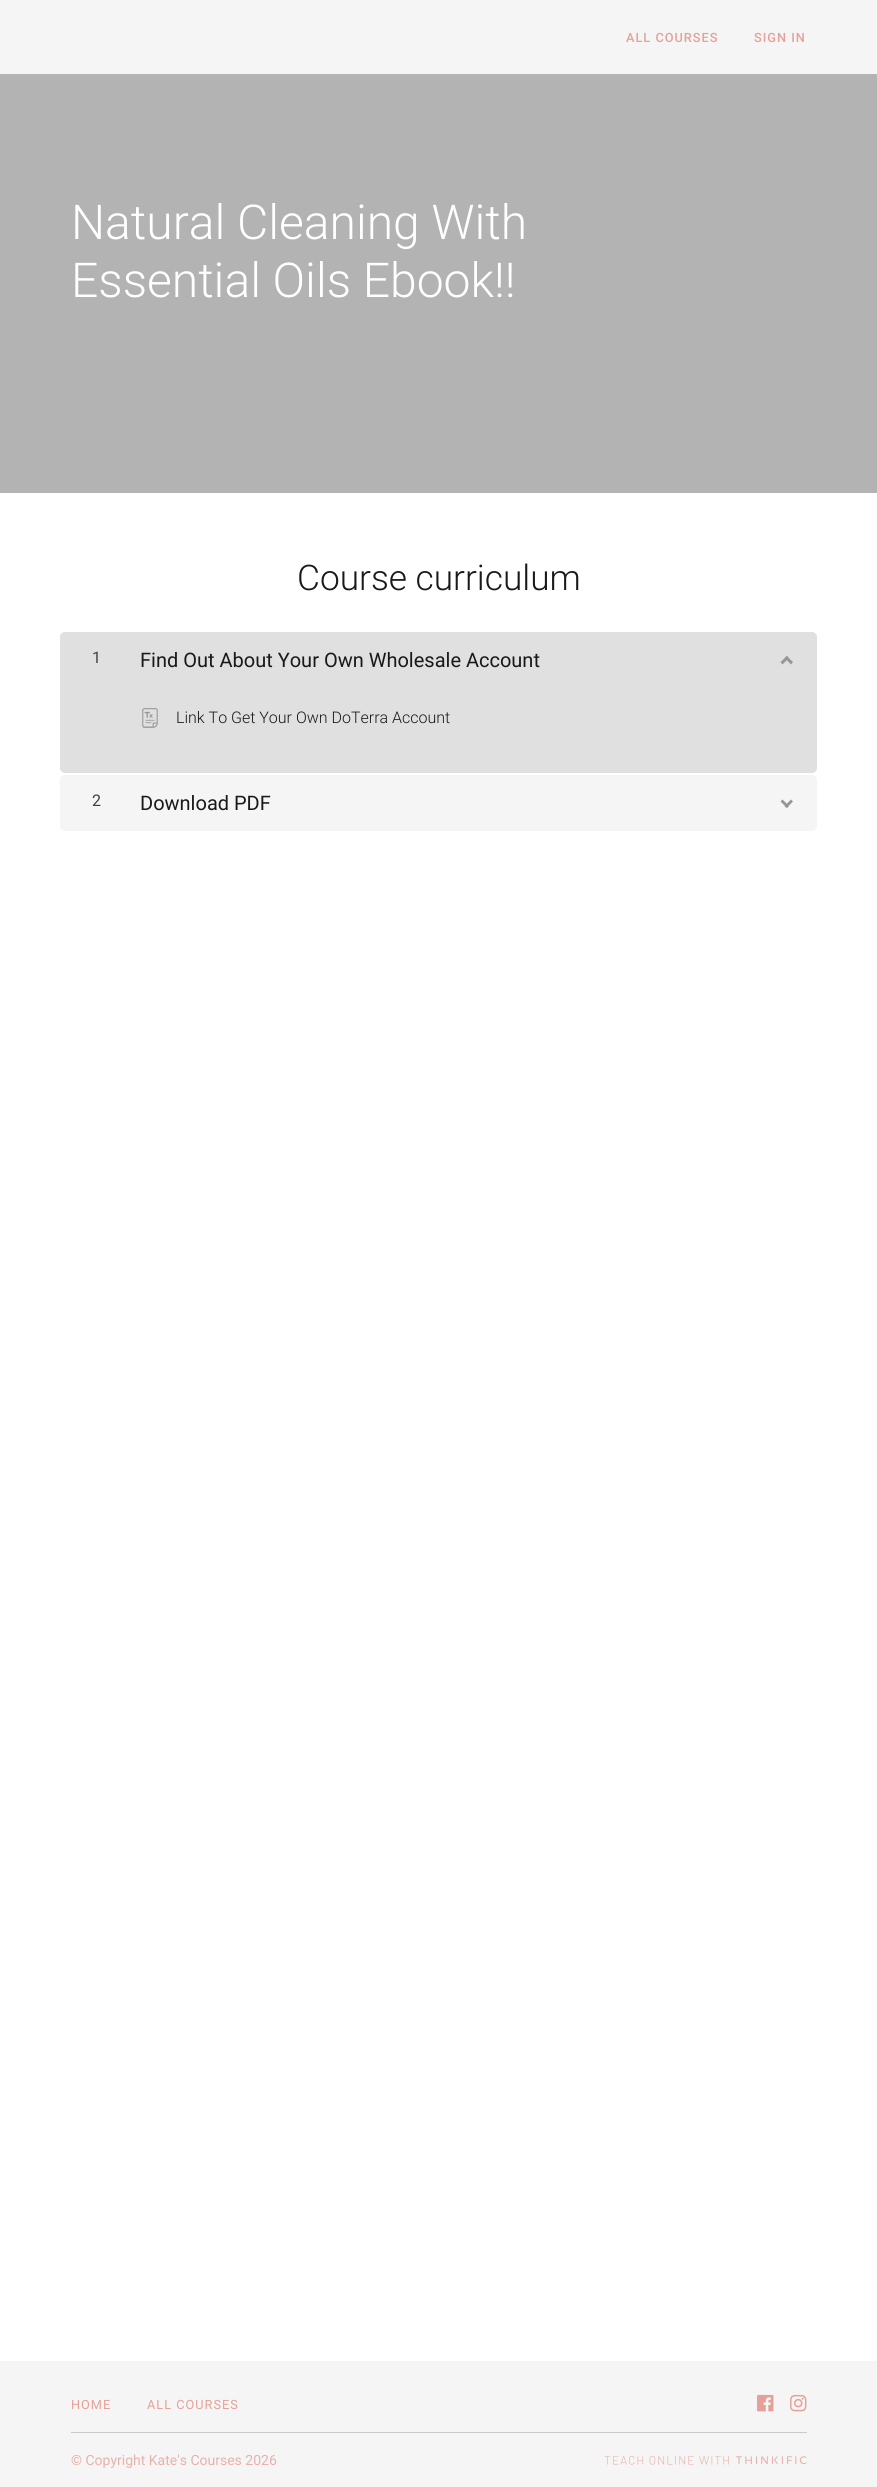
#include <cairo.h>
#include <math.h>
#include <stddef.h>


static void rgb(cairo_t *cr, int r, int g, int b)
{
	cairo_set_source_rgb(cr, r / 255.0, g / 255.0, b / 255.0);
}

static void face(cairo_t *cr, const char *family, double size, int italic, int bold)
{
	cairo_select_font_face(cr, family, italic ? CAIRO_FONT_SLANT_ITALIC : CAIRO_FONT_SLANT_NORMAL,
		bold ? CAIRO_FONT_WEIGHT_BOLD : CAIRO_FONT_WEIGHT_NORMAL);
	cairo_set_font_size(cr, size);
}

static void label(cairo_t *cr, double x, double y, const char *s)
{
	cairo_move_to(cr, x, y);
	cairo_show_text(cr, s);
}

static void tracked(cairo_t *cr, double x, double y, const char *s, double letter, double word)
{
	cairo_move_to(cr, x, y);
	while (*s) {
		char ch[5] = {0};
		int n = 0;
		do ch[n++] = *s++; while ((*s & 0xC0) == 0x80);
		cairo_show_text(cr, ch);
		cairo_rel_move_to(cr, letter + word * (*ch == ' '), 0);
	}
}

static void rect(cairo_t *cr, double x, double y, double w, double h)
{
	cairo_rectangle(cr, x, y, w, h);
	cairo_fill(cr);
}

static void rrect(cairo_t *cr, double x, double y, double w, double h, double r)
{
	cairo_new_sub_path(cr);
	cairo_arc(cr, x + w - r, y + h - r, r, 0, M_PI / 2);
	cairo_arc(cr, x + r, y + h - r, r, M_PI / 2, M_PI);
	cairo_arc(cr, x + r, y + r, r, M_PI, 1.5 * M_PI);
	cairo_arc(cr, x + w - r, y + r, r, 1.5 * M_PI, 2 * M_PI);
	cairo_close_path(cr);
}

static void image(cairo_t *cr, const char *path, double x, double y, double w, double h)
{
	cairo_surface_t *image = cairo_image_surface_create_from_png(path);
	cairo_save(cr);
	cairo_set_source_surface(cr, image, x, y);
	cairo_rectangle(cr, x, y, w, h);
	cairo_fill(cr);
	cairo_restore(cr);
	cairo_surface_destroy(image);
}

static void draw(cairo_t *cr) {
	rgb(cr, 255, 255, 255);
	cairo_paint(cr);
	rgb(cr, 245, 245, 245);
	rect(cr, 0, 0, 877, 74);
	face(cr, "Roboto Medium", 12.75, 0, 0);
	rgb(cr, 228, 161, 153);
	tracked(cr, 626, 42, "ALL COURSES", 1, 0);
	tracked(cr, 754, 42, "SIGN IN", 1, 0);
	rgb(cr, 179, 179, 179);
	rect(cr, 0, 74, 877, 419);
	face(cr, "Roboto Light", 48, 0, 0);
	rgb(cr, 255, 255, 255);
	label(cr, 71, 239, "Natural Cleaning With");
	label(cr, 71, 297, "Essential Oils Ebook!!");
	face(cr, "Roboto Light", 35.25, 0, 0);
	rgb(cr, 25, 25, 25);
	label(cr, 297, 590, "Course curriculum");
	rgb(cr, 224, 224, 224);
	rrect(cr, 60, 632, 757, 141, 5);
	cairo_fill(cr);
	face(cr, "Roboto", 16, 0, 0);
	rgb(cr, 65, 65, 65);
	label(cr, 92, 663, "1");
	face(cr, "Roboto", 20, 0, 0);
	rgb(cr, 25, 25, 25);
	label(cr, 140, 667, "Find Out About Your Own Wholesale Account");
	rgb(cr, 150, 150, 150);
	cairo_new_path(cr);
	cairo_move_to(cr, 784.5, 658);
	cairo_line_to(cr, 786.5, 656);
	cairo_line_to(cr, 793, 662);
	cairo_line_to(cr, 791, 664.5);
	cairo_close_path(cr);
	cairo_fill(cr);
	cairo_new_path(cr);
	cairo_move_to(cr, 787, 656);
	cairo_line_to(cr, 789, 658);
	cairo_line_to(cr, 782.5, 664.5);
	cairo_line_to(cr, 780.5, 662);
	cairo_close_path(cr);
	cairo_fill(cr);
	image(cr, "image0.png", 142, 708, 16, 20);
	face(cr, "Roboto Light", 16, 0, 0);
	rgb(cr, 25, 25, 25);
	label(cr, 176, 723, "Link To Get Your Own DoTerra Account");
	rgb(cr, 245, 245, 245);
	rrect(cr, 60, 775, 757, 56, 5);
	cairo_fill(cr);
	face(cr, "Roboto", 16, 0, 0);
	rgb(cr, 65, 65, 65);
	label(cr, 92, 806, "2");
	face(cr, "Roboto", 20, 0, 0);
	rgb(cr, 25, 25, 25);
	label(cr, 140, 810, "Download PDF");
	rgb(cr, 150, 150, 150);
	cairo_new_path(cr);
	cairo_move_to(cr, 791, 799.5);
	cairo_line_to(cr, 793, 801.5);
	cairo_line_to(cr, 786.5, 808);
	cairo_line_to(cr, 784.5, 806);
	cairo_close_path(cr);
	cairo_fill(cr);
	cairo_new_path(cr);
	cairo_move_to(cr, 780.5, 801.5);
	cairo_line_to(cr, 782.5, 799.5);
	cairo_line_to(cr, 789, 806);
	cairo_line_to(cr, 787, 808);
	cairo_close_path(cr);
	cairo_fill(cr);
	rgb(cr, 245, 245, 245);
	rect(cr, 0, 2361, 877, 126);
	face(cr, "Roboto", 12.75, 0, 0);
	rgb(cr, 228, 161, 153);
	tracked(cr, 71, 2409, "HOME", 1, 0);
	tracked(cr, 147, 2409, "ALL COURSES", 1, 0);
	image(cr, "image1.png", 757, 2394, 17, 18);
	image(cr, "image2.png", 790, 2394, 17, 18);
	rgb(cr, 201, 201, 201);
	rect(cr, 71, 2432, 736, 1);
	face(cr, "Roboto", 14, 0, 0);
	rgb(cr, 231, 178, 171);
	label(cr, 71, 2465, "© Copyright Kate's Courses 2026");
	image(cr, "image3.png", 604, 2456, 203, 9);
}

int main(void) {
	cairo_surface_t *surface = cairo_image_surface_create(CAIRO_FORMAT_RGB24, 877, 2487);
	cairo_t *cr = cairo_create(surface);
	cairo_font_options_t *options = cairo_font_options_create();
	cairo_font_options_set_hint_metrics(options, CAIRO_HINT_METRICS_OFF);
	cairo_font_options_set_hint_style(options, CAIRO_HINT_STYLE_NONE);
	cairo_set_font_options(cr, options);
	cairo_set_miter_limit(cr, 4);
	draw(cr);
	cairo_surface_write_to_png(surface, "render.png");
	cairo_font_options_destroy(options);
	cairo_destroy(cr);
	cairo_surface_destroy(surface);
	return 0;
}
